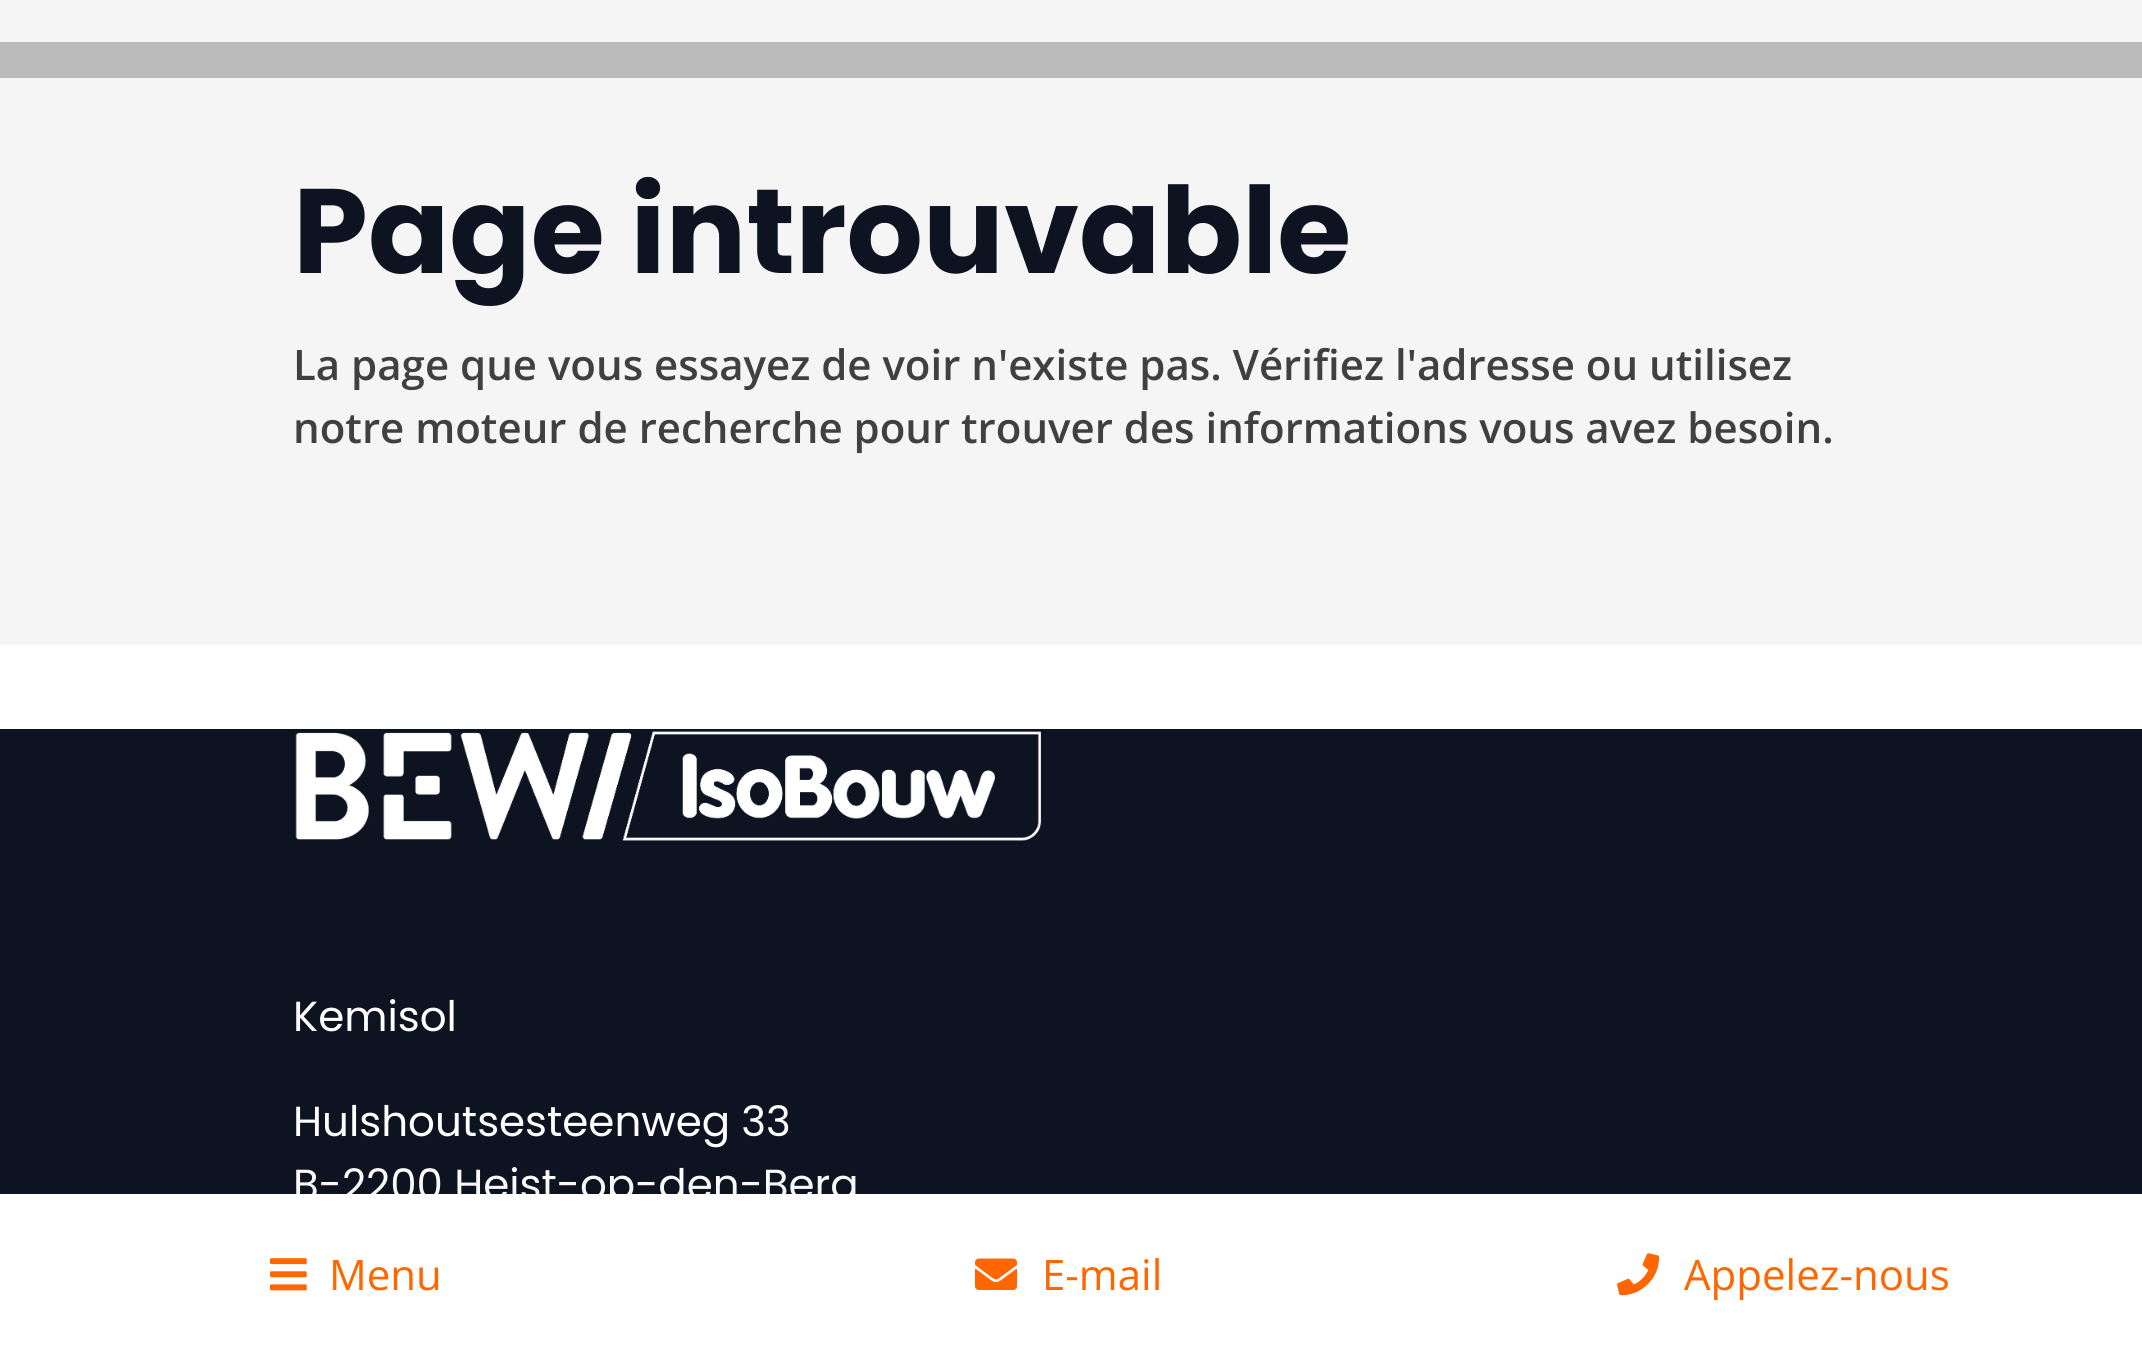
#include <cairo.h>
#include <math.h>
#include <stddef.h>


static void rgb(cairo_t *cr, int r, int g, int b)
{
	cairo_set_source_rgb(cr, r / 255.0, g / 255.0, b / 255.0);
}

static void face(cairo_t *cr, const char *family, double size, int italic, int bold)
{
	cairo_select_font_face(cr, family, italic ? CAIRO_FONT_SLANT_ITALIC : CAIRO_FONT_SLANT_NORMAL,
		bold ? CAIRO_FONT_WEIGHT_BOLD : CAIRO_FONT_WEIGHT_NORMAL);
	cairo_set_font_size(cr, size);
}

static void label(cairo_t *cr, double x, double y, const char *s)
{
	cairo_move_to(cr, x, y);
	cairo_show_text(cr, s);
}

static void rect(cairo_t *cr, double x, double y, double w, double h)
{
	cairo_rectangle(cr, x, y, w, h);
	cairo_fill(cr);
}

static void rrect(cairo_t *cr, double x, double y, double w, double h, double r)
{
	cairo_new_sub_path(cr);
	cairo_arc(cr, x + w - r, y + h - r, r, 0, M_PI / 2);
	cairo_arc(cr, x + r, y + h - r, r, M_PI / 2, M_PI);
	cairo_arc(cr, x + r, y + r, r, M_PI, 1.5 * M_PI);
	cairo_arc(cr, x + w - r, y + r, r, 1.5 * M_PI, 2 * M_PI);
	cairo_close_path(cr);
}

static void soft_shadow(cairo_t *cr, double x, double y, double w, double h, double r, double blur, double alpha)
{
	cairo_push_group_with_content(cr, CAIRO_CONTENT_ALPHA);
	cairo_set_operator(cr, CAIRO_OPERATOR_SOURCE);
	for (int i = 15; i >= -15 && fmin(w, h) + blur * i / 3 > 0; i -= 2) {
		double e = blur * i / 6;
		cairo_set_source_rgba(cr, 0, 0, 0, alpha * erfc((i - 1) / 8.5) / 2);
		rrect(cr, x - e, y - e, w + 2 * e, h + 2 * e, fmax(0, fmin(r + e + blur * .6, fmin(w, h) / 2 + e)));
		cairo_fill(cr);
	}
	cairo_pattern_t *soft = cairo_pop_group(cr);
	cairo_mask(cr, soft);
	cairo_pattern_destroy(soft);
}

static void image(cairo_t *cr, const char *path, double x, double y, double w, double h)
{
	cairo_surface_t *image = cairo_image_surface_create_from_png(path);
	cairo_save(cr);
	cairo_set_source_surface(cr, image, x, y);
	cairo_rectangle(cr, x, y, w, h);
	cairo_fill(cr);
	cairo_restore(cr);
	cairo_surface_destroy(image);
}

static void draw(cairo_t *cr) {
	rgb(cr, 255, 255, 255);
	cairo_paint(cr);
	rgb(cr, 245, 245, 245);
	rect(cr, 0, 0, 2142, 42);
	rect(cr, 0, 78, 2142, 567);
	rgb(cr, 186, 186, 186);
	rect(cr, 0, 42, 2142, 36);
	face(cr, "Poppins", 120, 0, 1);
	rgb(cr, 13, 19, 32);
	label(cr, 293, 273, "Page introuvable");
	face(cr, "Open Sans SemiBold", 42, 0, 0);
	rgb(cr, 64, 64, 64);
	label(cr, 293, 380, "La page que vous essayez de voir n'existe pas. Vérifiez l'adresse ou utilisez");
	label(cr, 293, 443, "notre moteur de recherche pour trouver des informations vous avez besoin.");
	rgb(cr, 13, 19, 32);
	rect(cr, 0, 729, 2142, 465);
	image(cr, "image0.png", 295, 731, 746, 110);
	face(cr, "Poppins", 42, 0, 0);
	rgb(cr, 255, 255, 255);
	label(cr, 293, 1031, "Kemisol");
	label(cr, 293, 1136, "Hulshoutsesteenweg 33");
	label(cr, 293, 1199, "B-2200 Heist-op-den-Berg");
	rgb(cr, 13, 19, 32);
	soft_shadow(cr, 0, 1194, 2142, 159, 0, 15, 0.1);
	rgb(cr, 255, 255, 255);
	rect(cr, 0, 1194, 2142, 157);
	image(cr, "image1.png", 270, 1258, 37, 33);
	face(cr, "Open Sans", 42, 0, 0);
	rgb(cr, 255, 102, 0);
	label(cr, 329, 1290, "Menu");
	image(cr, "image2.png", 975, 1258, 42, 32);
	label(cr, 1042, 1290, "E-mail");
	image(cr, "image3.png", 1617, 1253, 43, 43);
	label(cr, 1684, 1290, "Appelez-nous");
}

int main(void) {
	cairo_surface_t *surface = cairo_image_surface_create(CAIRO_FORMAT_RGB24, 2142, 1351);
	cairo_t *cr = cairo_create(surface);
	cairo_font_options_t *options = cairo_font_options_create();
	cairo_font_options_set_hint_metrics(options, CAIRO_HINT_METRICS_OFF);
	cairo_font_options_set_hint_style(options, CAIRO_HINT_STYLE_NONE);
	cairo_set_font_options(cr, options);
	cairo_set_miter_limit(cr, 4);
	draw(cr);
	cairo_surface_write_to_png(surface, "render.png");
	cairo_font_options_destroy(options);
	cairo_destroy(cr);
	cairo_surface_destroy(surface);
	return 0;
}
